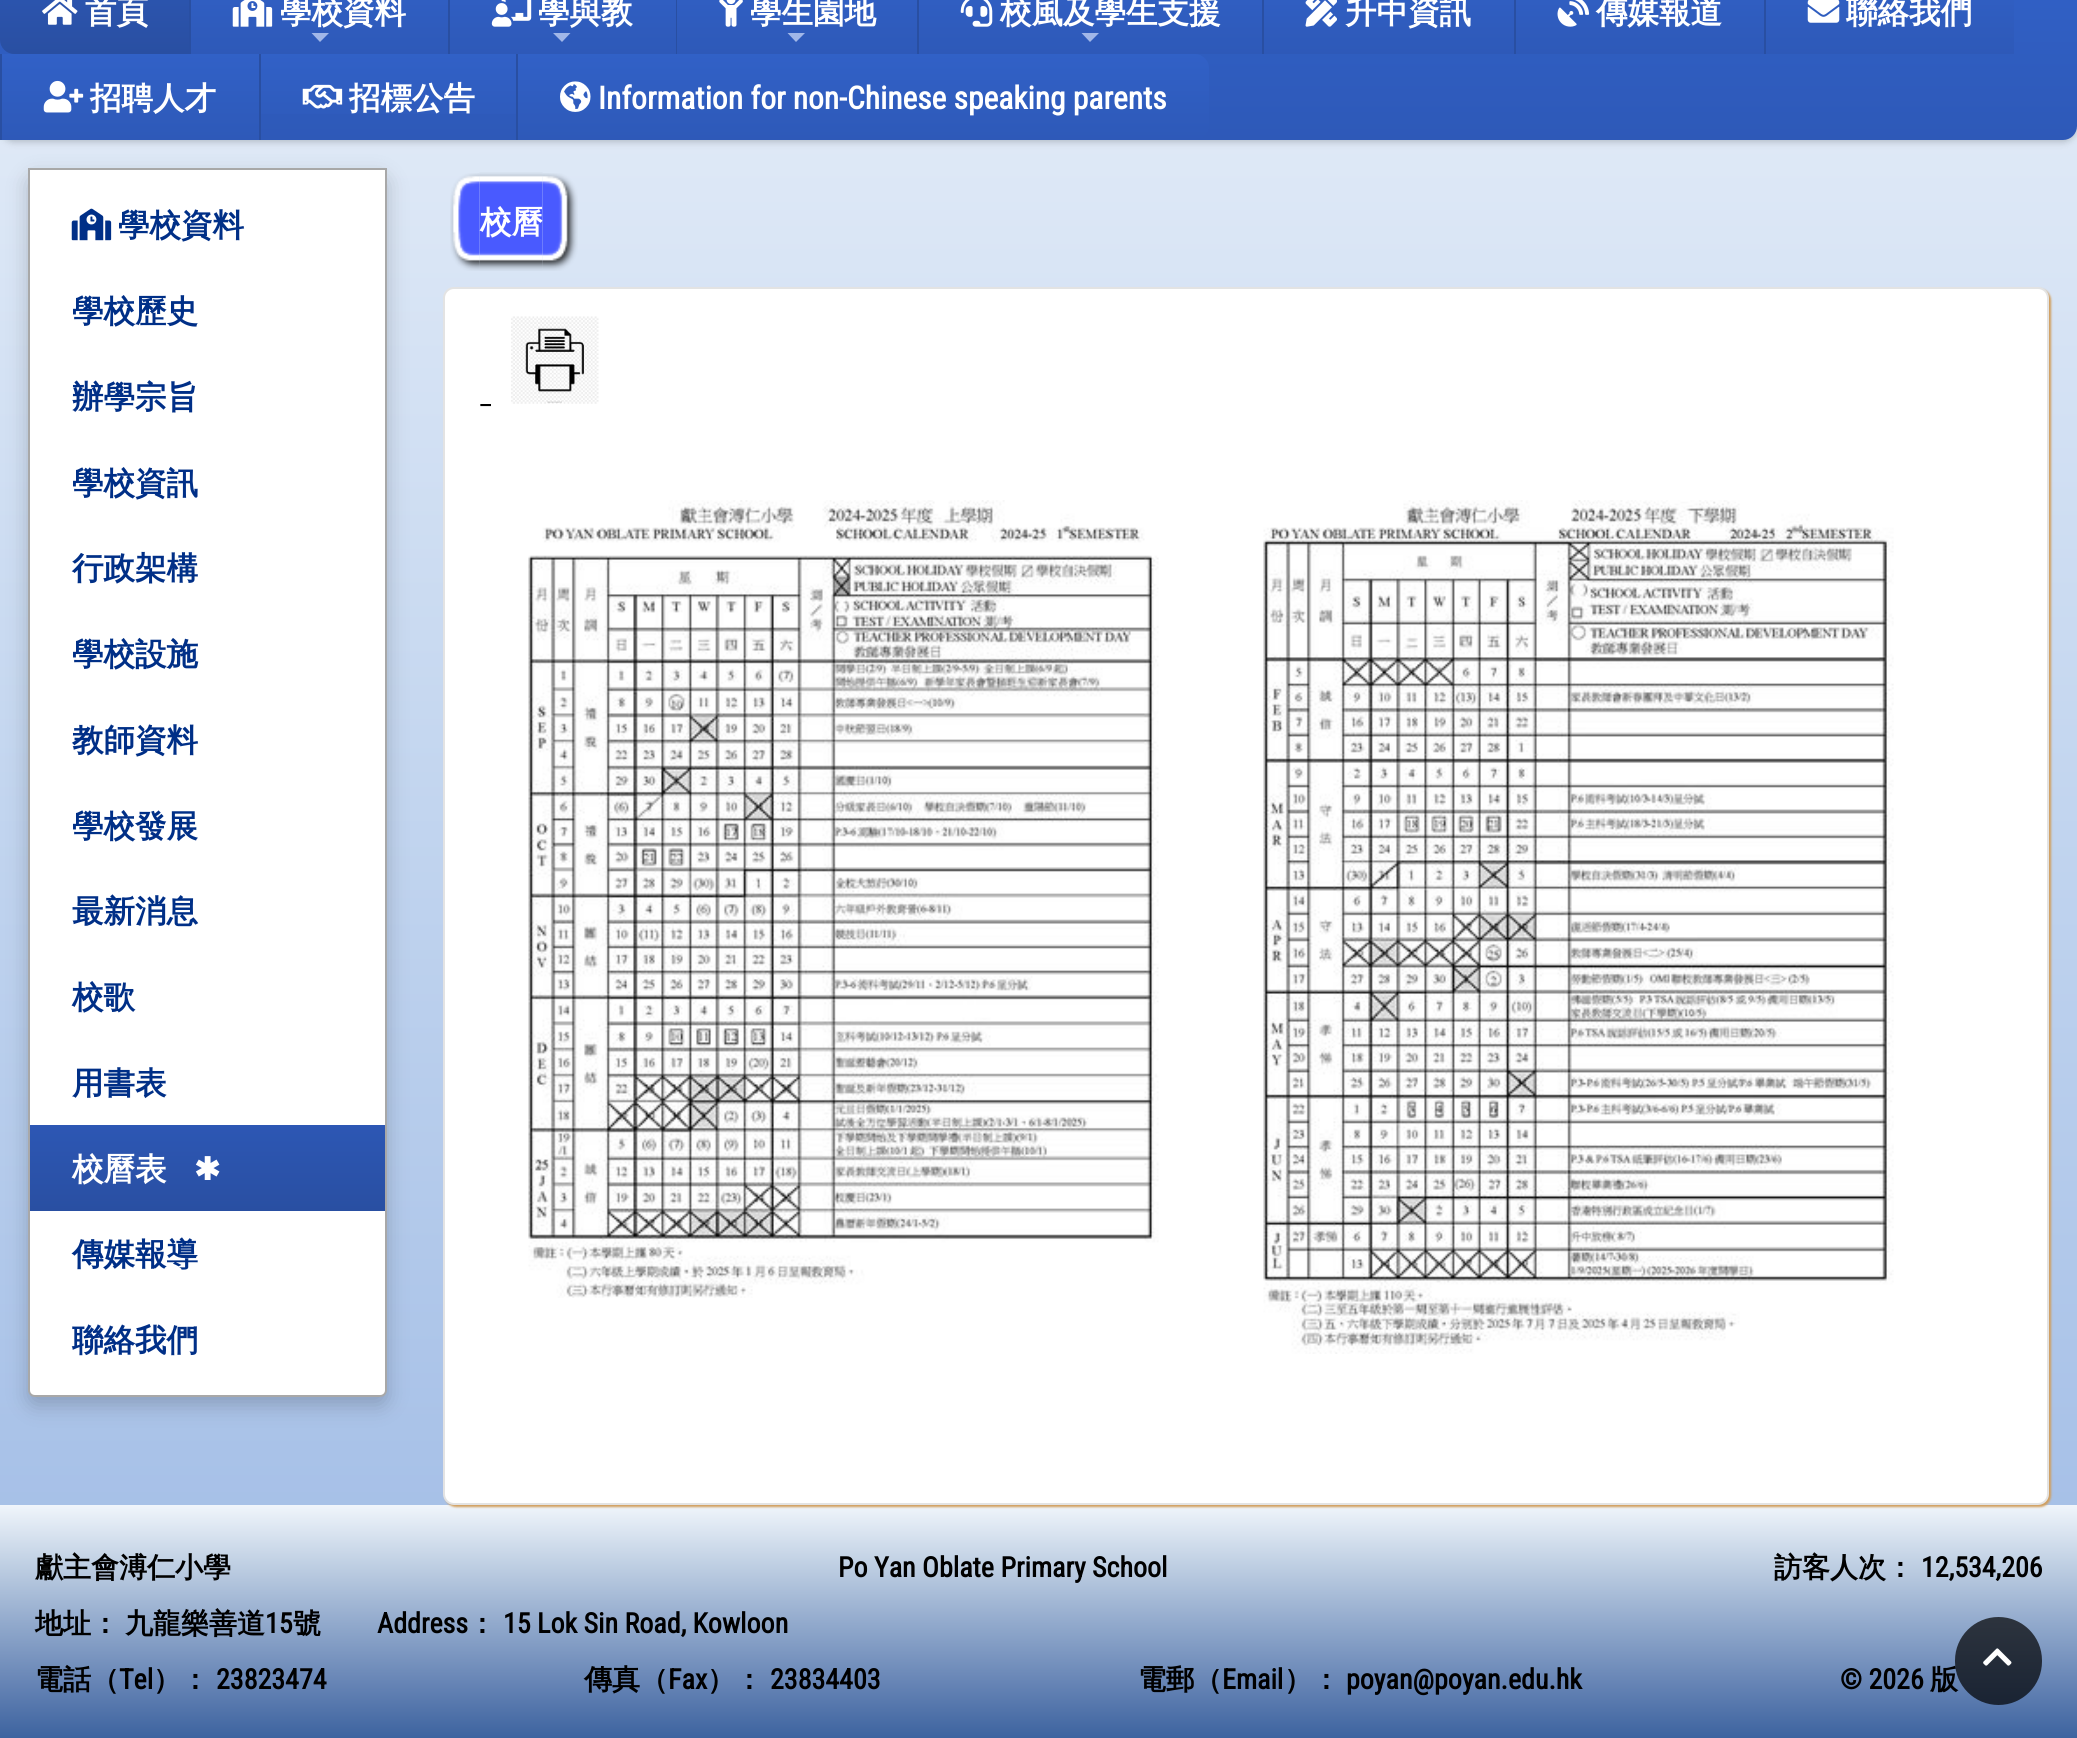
#include <cairo.h>
#include <math.h>
#include <stddef.h>


static void rgb(cairo_t *cr, int r, int g, int b)
{
	cairo_set_source_rgb(cr, r / 255.0, g / 255.0, b / 255.0);
}

static void face(cairo_t *cr, const char *family, double size, int italic, int bold)
{
	cairo_select_font_face(cr, family, italic ? CAIRO_FONT_SLANT_ITALIC : CAIRO_FONT_SLANT_NORMAL,
		bold ? CAIRO_FONT_WEIGHT_BOLD : CAIRO_FONT_WEIGHT_NORMAL);
	cairo_set_font_size(cr, size);
}

static void label(cairo_t *cr, double x, double y, const char *s)
{
	cairo_move_to(cr, x, y);
	cairo_show_text(cr, s);
}

static void rect(cairo_t *cr, double x, double y, double w, double h)
{
	cairo_rectangle(cr, x, y, w, h);
	cairo_fill(cr);
}

static void rrect(cairo_t *cr, double x, double y, double w, double h, double r)
{
	cairo_new_sub_path(cr);
	cairo_arc(cr, x + w - r, y + h - r, r, 0, M_PI / 2);
	cairo_arc(cr, x + r, y + h - r, r, M_PI / 2, M_PI);
	cairo_arc(cr, x + r, y + r, r, M_PI, 1.5 * M_PI);
	cairo_arc(cr, x + w - r, y + r, r, 1.5 * M_PI, 2 * M_PI);
	cairo_close_path(cr);
}

static void soft_shadow(cairo_t *cr, double x, double y, double w, double h, double r, double blur, double alpha)
{
	cairo_push_group_with_content(cr, CAIRO_CONTENT_ALPHA);
	cairo_set_operator(cr, CAIRO_OPERATOR_SOURCE);
	for (int i = 15; i >= -15 && fmin(w, h) + blur * i / 3 > 0; i -= 2) {
		double e = blur * i / 6;
		cairo_set_source_rgba(cr, 0, 0, 0, alpha * erfc((i - 1) / 8.5) / 2);
		rrect(cr, x - e, y - e, w + 2 * e, h + 2 * e, fmax(0, fmin(r + e + blur * .6, fmin(w, h) / 2 + e)));
		cairo_fill(cr);
	}
	cairo_pattern_t *soft = cairo_pop_group(cr);
	cairo_mask(cr, soft);
	cairo_pattern_destroy(soft);
}

static void image(cairo_t *cr, const char *path, double x, double y, double w, double h)
{
	cairo_surface_t *image = cairo_image_surface_create_from_png(path);
	cairo_save(cr);
	cairo_set_source_surface(cr, image, x, y);
	cairo_rectangle(cr, x, y, w, h);
	cairo_fill(cr);
	cairo_restore(cr);
	cairo_surface_destroy(image);
}

static void draw(cairo_t *cr) {
	cairo_pattern_t *gradient;
	rgb(cr, 255, 255, 255);
	cairo_paint(cr);
	gradient = cairo_pattern_create_linear(1039, -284, 1039, 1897);
	cairo_pattern_add_color_stop_rgba(gradient, 0, 0.941, 0.961, 0.984, 1);
	cairo_pattern_add_color_stop_rgba(gradient, 0.25, 0.851, 0.898, 0.961, 1);
	cairo_pattern_add_color_stop_rgba(gradient, 0.5, 0.761, 0.835, 0.937, 1);
	cairo_pattern_add_color_stop_rgba(gradient, 0.75, 0.678, 0.773, 0.914, 1);
	cairo_pattern_add_color_stop_rgba(gradient, 1, 0.596, 0.71, 0.89, 1);
	cairo_set_source(cr, gradient);
	cairo_pattern_destroy(gradient);
	rect(cr, 0, 126, 2077, 1379);
	rgb(cr, 0, 0, 0);
	soft_shadow(cr, 0, -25, 2077, 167, 14, 3.5, 0.2);
	gradient = cairo_pattern_create_linear(1039, -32, 1039, 140);
	cairo_pattern_add_color_stop_rgba(gradient, 0, 0.192, 0.38, 0.78, 1);
	cairo_pattern_add_color_stop_rgba(gradient, 1, 0.18, 0.349, 0.722, 1);
	cairo_set_source(cr, gradient);
	cairo_pattern_destroy(gradient);
	rrect(cr, 0, -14, 2077, 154, 14);
	cairo_fill(cr);
	gradient = cairo_pattern_create_linear(95, -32, 95, 54);
	cairo_pattern_add_color_stop_rgba(gradient, 0, 0.176, 0.341, 0.706, 1);
	cairo_pattern_add_color_stop_rgba(gradient, 1, 0.161, 0.31, 0.635, 1);
	cairo_set_source(cr, gradient);
	cairo_pattern_destroy(gradient);
	cairo_new_path(cr);
	cairo_move_to(cr, 14, -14);
	cairo_line_to(cr, 189, -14);
	cairo_line_to(cr, 189, 54);
	cairo_line_to(cr, 14, 54);
	cairo_curve_to(cr, 6.5, 54, 0, 47.5, 0, 40);
	cairo_line_to(cr, 0, 0);
	cairo_curve_to(cr, 0, -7.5, 6.5, -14, 14, -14);
	cairo_close_path(cr);
	cairo_fill(cr);
	image(cr, "image0.png", 42, 0, 36, 25);
	face(cr, "WenQuanYi Zen Hei", 31.5, 0, 1);
	rgb(cr, 255, 255, 255);
	label(cr, 85, 23, "首頁");
	rgb(cr, 41, 79, 162);
	rect(cr, 189, 0, 2, 54);
	gradient = cairo_pattern_create_linear(319, -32, 319, 54);
	cairo_pattern_add_color_stop_rgba(gradient, 0, 0.192, 0.38, 0.78, 1);
	cairo_pattern_add_color_stop_rgba(gradient, 1, 0.18, 0.349, 0.722, 1);
	cairo_set_source(cr, gradient);
	cairo_pattern_destroy(gradient);
	rect(cr, 191, 0, 257, 54);
	image(cr, "image1.png", 232, 0, 41, 27);
	rgb(cr, 255, 255, 255);
	label(cr, 280, 23, "學校資料");
	rgb(cr, 161, 183, 232);
	cairo_new_path(cr);
	cairo_move_to(cr, 311.5, 33);
	cairo_line_to(cr, 329, 33);
	cairo_line_to(cr, 320, 42);
	cairo_close_path(cr);
	cairo_fill(cr);
	rgb(cr, 41, 79, 162);
	rect(cr, 448, 0, 2, 54);
	gradient = cairo_pattern_create_linear(563, -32, 563, 54);
	cairo_pattern_add_color_stop_rgba(gradient, 0, 0.192, 0.38, 0.78, 1);
	cairo_pattern_add_color_stop_rgba(gradient, 1, 0.18, 0.349, 0.722, 1);
	cairo_set_source(cr, gradient);
	cairo_pattern_destroy(gradient);
	rect(cr, 450, 0, 226, 54);
	image(cr, "image2.png", 491, 0, 41, 27);
	rgb(cr, 255, 255, 255);
	label(cr, 538, 23, "學與教");
	rgb(cr, 161, 183, 232);
	cairo_new_path(cr);
	cairo_move_to(cr, 553, 33);
	cairo_line_to(cr, 570.5, 33);
	cairo_line_to(cr, 562, 42);
	cairo_close_path(cr);
	cairo_fill(cr);
	rgb(cr, 41, 79, 162);
	rect(cr, 676, 0, 1, 54);
	gradient = cairo_pattern_create_linear(797, -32, 797, 54);
	cairo_pattern_add_color_stop_rgba(gradient, 0, 0.192, 0.38, 0.78, 1);
	cairo_pattern_add_color_stop_rgba(gradient, 1, 0.18, 0.349, 0.722, 1);
	cairo_set_source(cr, gradient);
	cairo_pattern_destroy(gradient);
	rect(cr, 677, 0, 240, 54);
	image(cr, "image3.png", 719, 0, 24, 27);
	rgb(cr, 255, 255, 255);
	label(cr, 750, 23, "學生園地");
	rgb(cr, 161, 183, 232);
	cairo_new_path(cr);
	cairo_move_to(cr, 787.5, 33);
	cairo_line_to(cr, 805, 33);
	cairo_line_to(cr, 796, 42);
	cairo_close_path(cr);
	cairo_fill(cr);
	rgb(cr, 41, 79, 162);
	rect(cr, 917, 0, 2, 54);
	gradient = cairo_pattern_create_linear(1090, -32, 1090, 54);
	cairo_pattern_add_color_stop_rgba(gradient, 0, 0.192, 0.38, 0.78, 1);
	cairo_pattern_add_color_stop_rgba(gradient, 1, 0.18, 0.349, 0.722, 1);
	cairo_set_source(cr, gradient);
	cairo_pattern_destroy(gradient);
	rect(cr, 919, 0, 343, 54);
	image(cr, "image4.png", 960, 0, 33, 27);
	rgb(cr, 255, 255, 255);
	label(cr, 1000, 23, "校風及學生支援");
	rgb(cr, 161, 183, 232);
	cairo_new_path(cr);
	cairo_move_to(cr, 1081.5, 33);
	cairo_line_to(cr, 1099, 33);
	cairo_line_to(cr, 1090, 42);
	cairo_close_path(cr);
	cairo_fill(cr);
	rgb(cr, 41, 79, 162);
	rect(cr, 1262, 0, 2, 54);
	gradient = cairo_pattern_create_linear(1389, -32, 1389, 54);
	cairo_pattern_add_color_stop_rgba(gradient, 0, 0.192, 0.38, 0.78, 1);
	cairo_pattern_add_color_stop_rgba(gradient, 1, 0.18, 0.349, 0.722, 1);
	cairo_set_source(cr, gradient);
	cairo_pattern_destroy(gradient);
	rect(cr, 1264, 0, 250, 54);
	image(cr, "image5.png", 1305, 0, 32, 27);
	rgb(cr, 255, 255, 255);
	label(cr, 1345, 23, "升中資訊");
	rgb(cr, 41, 79, 162);
	rect(cr, 1514, 0, 2, 54);
	gradient = cairo_pattern_create_linear(1640, -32, 1640, 54);
	cairo_pattern_add_color_stop_rgba(gradient, 0, 0.192, 0.38, 0.78, 1);
	cairo_pattern_add_color_stop_rgba(gradient, 1, 0.18, 0.349, 0.722, 1);
	cairo_set_source(cr, gradient);
	cairo_pattern_destroy(gradient);
	rect(cr, 1516, 0, 248, 54);
	image(cr, "image6.png", 1557, 0, 33, 27);
	rgb(cr, 255, 255, 255);
	label(cr, 1596, 23, "傳媒報道");
	rgb(cr, 41, 79, 162);
	rect(cr, 1764, 0, 2, 54);
	gradient = cairo_pattern_create_linear(1890, -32, 1890, 54);
	cairo_pattern_add_color_stop_rgba(gradient, 0, 0.192, 0.38, 0.78, 1);
	cairo_pattern_add_color_stop_rgba(gradient, 1, 0.18, 0.349, 0.722, 1);
	cairo_set_source(cr, gradient);
	cairo_pattern_destroy(gradient);
	rect(cr, 1766, 0, 248, 54);
	image(cr, "image7.png", 1807, 0, 33, 23);
	rgb(cr, 255, 255, 255);
	label(cr, 1846, 23, "聯絡我們");
	rgb(cr, 41, 79, 162);
	rect(cr, 0, 54, 2, 86);
	gradient = cairo_pattern_create_linear(130, 54, 130, 140);
	cairo_pattern_add_color_stop_rgba(gradient, 0, 0.192, 0.38, 0.78, 1);
	cairo_pattern_add_color_stop_rgba(gradient, 1, 0.18, 0.349, 0.722, 1);
	cairo_set_source(cr, gradient);
	cairo_pattern_destroy(gradient);
	rect(cr, 2, 54, 257, 86);
	image(cr, "image8.png", 43, 80, 41, 33);
	rgb(cr, 255, 255, 255);
	label(cr, 90, 109, "招聘人才");
	rgb(cr, 41, 79, 162);
	rect(cr, 259, 54, 2, 86);
	gradient = cairo_pattern_create_linear(389, 54, 389, 140);
	cairo_pattern_add_color_stop_rgba(gradient, 0, 0.192, 0.38, 0.78, 1);
	cairo_pattern_add_color_stop_rgba(gradient, 1, 0.18, 0.349, 0.722, 1);
	cairo_set_source(cr, gradient);
	cairo_pattern_destroy(gradient);
	rect(cr, 261, 54, 255, 60);
	image(cr, "image9.png", 302, 84, 41, 25);
	rgb(cr, 255, 255, 255);
	label(cr, 349, 109, "招標公告");
	rgb(cr, 41, 79, 162);
	rect(cr, 516, 54, 2, 86);
	gradient = cairo_pattern_create_linear(864, 54, 864, 140);
	cairo_pattern_add_color_stop_rgba(gradient, 0, 0.192, 0.38, 0.78, 1);
	cairo_pattern_add_color_stop_rgba(gradient, 1, 0.18, 0.349, 0.722, 1);
	cairo_set_source(cr, gradient);
	cairo_pattern_destroy(gradient);
	cairo_new_path(cr);
	cairo_move_to(cr, 518, 54);
	cairo_line_to(cr, 1195, 54);
	cairo_curve_to(cr, 1202.5, 54, 1209, 60.5, 1209, 68);
	cairo_line_to(cr, 1209, 126);
	cairo_curve_to(cr, 1209, 133.5, 1202.5, 140, 1195, 140);
	cairo_line_to(cr, 518, 140);
	cairo_close_path(cr);
	cairo_fill(cr);
	image(cr, "image10.png", 560, 81, 31, 31);
	face(cr, "Roboto Condensed", 31.5, 0, 1);
	rgb(cr, 255, 255, 255);
	label(cr, 598, 109, "Information for non-Chinese speaking parents");
	rgb(cr, 0, 0, 0);
	soft_shadow(cr, 28, 177, 359, 1228, 7, 10.5, 0.2);
	rgb(cr, 255, 255, 255);
	cairo_new_path(cr);
	cairo_move_to(cr, 29, 169);
	cairo_line_to(cr, 386, 169);
	cairo_line_to(cr, 386, 1390);
	cairo_curve_to(cr, 386, 1393.5, 383.5, 1396, 380, 1396);
	cairo_line_to(cr, 35, 1396);
	cairo_curve_to(cr, 31.5, 1396, 29, 1393.5, 29, 1390);
	cairo_close_path(cr);
	cairo_fill_preserve(cr);
	rgb(cr, 168, 168, 168);
	cairo_stroke(cr);
	image(cr, "image11.png", 71, 208, 41, 33);
	face(cr, "WenQuanYi Zen Hei", 31.5, 0, 1);
	rgb(cr, 0, 47, 135);
	label(cr, 118, 236, "學校資料");
	label(cr, 72, 322, "學校歷史");
	label(cr, 72, 408, "辦學宗旨");
	label(cr, 72, 494, "學校資訊");
	label(cr, 72, 579, "行政架構");
	label(cr, 72, 665, "學校設施");
	label(cr, 72, 751, "教師資料");
	label(cr, 72, 837, "學校發展");
	label(cr, 72, 922, "最新消息");
	label(cr, 72, 1008, "校歌");
	label(cr, 72, 1094, "用書表");
	gradient = cairo_pattern_create_linear(207, 1125, 207, 1211);
	cairo_pattern_add_color_stop_rgba(gradient, 0, 0.176, 0.341, 0.706, 1);
	cairo_pattern_add_color_stop_rgba(gradient, 1, 0.161, 0.31, 0.635, 1);
	cairo_set_source(cr, gradient);
	cairo_pattern_destroy(gradient);
	rect(cr, 30, 1125, 355, 86);
	rgb(cr, 255, 255, 255);
	label(cr, 72, 1180, "校曆表");
	face(cr, "DejaVu Sans", 31.5, 0, 1);
	label(cr, 194, 1180, "✱");
	face(cr, "WenQuanYi Zen Hei", 31.5, 0, 1);
	rgb(cr, 0, 47, 135);
	label(cr, 72, 1265, "傳媒報導");
	label(cr, 72, 1351, "聯絡我們");
	image(cr, "image12.png", 450, 173, 30, 98);
	image(cr, "image13.png", 479, 172, 64, 99);
	rgb(cr, 255, 255, 255);
	label(cr, 480, 233, "校曆");
	image(cr, "image14.png", 542, 173, 36, 98);
	gradient = cairo_pattern_create_linear(1039, 1505, 1039, 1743);
	cairo_pattern_add_color_stop_rgba(gradient, 0, 0.941, 0.961, 0.984, 1);
	cairo_pattern_add_color_stop_rgba(gradient, 0.25, 0.749, 0.812, 0.89, 1);
	cairo_pattern_add_color_stop_rgba(gradient, 0.5, 0.569, 0.663, 0.8, 1);
	cairo_pattern_add_color_stop_rgba(gradient, 0.75, 0.4, 0.518, 0.71, 1);
	cairo_pattern_add_color_stop_rgba(gradient, 1, 0.224, 0.376, 0.616, 1);
	cairo_set_source(cr, gradient);
	cairo_pattern_destroy(gradient);
	rect(cr, 0, 1505, 2077, 233);
	rgb(cr, 209, 158, 92);
	soft_shadow(cr, 445, 289, 1606, 1218, 11, 1, 1);
	rgb(cr, 255, 255, 255);
	rrect(cr, 444, 288, 1604, 1216, 10);
	cairo_fill_preserve(cr);
	rgb(cr, 227, 227, 227);
	cairo_stroke(cr);
	image(cr, "image15.png", 511, 316, 88, 88);
	face(cr, "Roboto Condensed", 28, 0, 0);
	rgb(cr, 0, 0, 0);
	label(cr, 480, 404, "_");
	image(cr, "image16.png", 528, 500, 631, 798);
	image(cr, "image17.png", 1263, 500, 631, 854);
	face(cr, "WenQuanYi Zen Hei", 28, 0, 1);
	label(cr, 35, 1577, "獻主會溥仁小學");
	face(cr, "Roboto Condensed", 28, 0, 1);
	label(cr, 838, 1577, "Po Yan Oblate Primary School");
	face(cr, "WenQuanYi Zen Hei", 28, 0, 1);
	label(cr, 1774, 1577, "訪客人次：");
	face(cr, "Roboto Condensed", 28, 0, 1);
	label(cr, 1921, 1577, "12,534,206");
	face(cr, "WenQuanYi Zen Hei", 28, 0, 1);
	label(cr, 35, 1633, "地址：");
	label(cr, 125, 1633, "九龍樂善道");
	face(cr, "Roboto Condensed", 28, 0, 1);
	label(cr, 265, 1633, "15");
	face(cr, "WenQuanYi Zen Hei", 28, 0, 1);
	label(cr, 293, 1633, "號");
	face(cr, "Roboto Condensed", 28, 0, 1);
	label(cr, 377, 1633, "Address");
	face(cr, "WenQuanYi Zen Hei", 28, 0, 1);
	label(cr, 468, 1633, "：");
	face(cr, "Roboto Condensed", 28, 0, 1);
	label(cr, 503, 1633, "15 Lok Sin Road, Kowloon");
	face(cr, "WenQuanYi Zen Hei", 28, 0, 1);
	label(cr, 35, 1689, "電話（");
	face(cr, "Roboto Condensed", 28, 0, 1);
	label(cr, 119, 1689, "Tel");
	face(cr, "WenQuanYi Zen Hei", 28, 0, 1);
	label(cr, 153, 1689, "）：");
	face(cr, "Roboto Condensed", 28, 0, 1);
	label(cr, 216, 1689, "23823474");
	face(cr, "WenQuanYi Zen Hei", 28, 0, 1);
	label(cr, 584, 1689, "傳真（");
	face(cr, "Roboto Condensed", 28, 0, 1);
	label(cr, 668, 1689, "Fax");
	face(cr, "WenQuanYi Zen Hei", 28, 0, 1);
	label(cr, 707, 1689, "）：");
	face(cr, "Roboto Condensed", 28, 0, 1);
	label(cr, 770, 1689, "23834403");
	face(cr, "WenQuanYi Zen Hei", 28, 0, 1);
	label(cr, 1138, 1689, "電郵（");
	face(cr, "Roboto Condensed", 28, 0, 1);
	label(cr, 1222, 1689, "Email");
	face(cr, "WenQuanYi Zen Hei", 28, 0, 1);
	label(cr, 1284, 1689, "）：");
	face(cr, "Roboto Condensed", 28, 0, 1);
	label(cr, 1346, 1689, "poyan@poyan.edu.hk");
	label(cr, 1840, 1689, "© 2026");
	face(cr, "WenQuanYi Zen Hei", 28, 0, 1);
	label(cr, 1930, 1689, "版");
	cairo_set_source_rgba(cr, 0, 0, 0, 0.7);
	rrect(cr, 1955, 1617, 87, 88, 43.5);
	cairo_fill(cr);
	image(cr, "image18.png", 1983, 1648, 29, 18);
}

int main(void) {
	cairo_surface_t *surface = cairo_image_surface_create(CAIRO_FORMAT_RGB24, 2077, 1738);
	cairo_t *cr = cairo_create(surface);
	cairo_font_options_t *options = cairo_font_options_create();
	cairo_font_options_set_hint_metrics(options, CAIRO_HINT_METRICS_OFF);
	cairo_font_options_set_hint_style(options, CAIRO_HINT_STYLE_NONE);
	cairo_set_font_options(cr, options);
	cairo_set_miter_limit(cr, 4);
	draw(cr);
	cairo_surface_write_to_png(surface, "render.png");
	cairo_font_options_destroy(options);
	cairo_destroy(cr);
	cairo_surface_destroy(surface);
	return 0;
}
